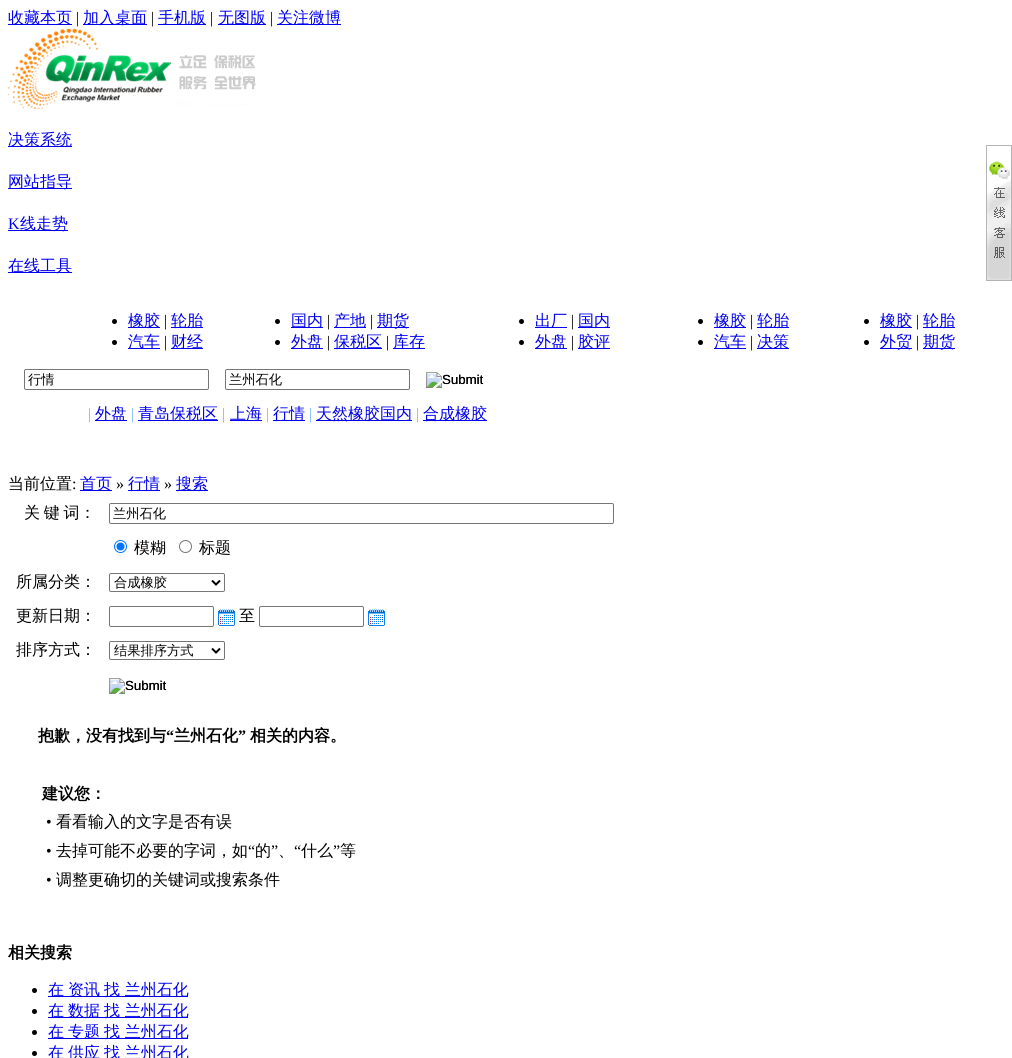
#include <cairo.h>
#include <math.h>
#include <stddef.h>


static void rgb(cairo_t *cr, int r, int g, int b)
{
	cairo_set_source_rgb(cr, r / 255.0, g / 255.0, b / 255.0);
}

static void face(cairo_t *cr, const char *family, double size, int italic, int bold)
{
	cairo_select_font_face(cr, family, italic ? CAIRO_FONT_SLANT_ITALIC : CAIRO_FONT_SLANT_NORMAL,
		bold ? CAIRO_FONT_WEIGHT_BOLD : CAIRO_FONT_WEIGHT_NORMAL);
	cairo_set_font_size(cr, size);
}

static void label(cairo_t *cr, double x, double y, const char *s)
{
	cairo_move_to(cr, x, y);
	cairo_show_text(cr, s);
}

static void tracked(cairo_t *cr, double x, double y, const char *s, double letter, double word)
{
	cairo_move_to(cr, x, y);
	while (*s) {
		char ch[5] = {0};
		int n = 0;
		do ch[n++] = *s++; while ((*s & 0xC0) == 0x80);
		cairo_show_text(cr, ch);
		cairo_rel_move_to(cr, letter + word * (*ch == ' '), 0);
	}
}

static void rect(cairo_t *cr, double x, double y, double w, double h)
{
	cairo_rectangle(cr, x, y, w, h);
	cairo_fill(cr);
}

static void rrect(cairo_t *cr, double x, double y, double w, double h, double r)
{
	cairo_new_sub_path(cr);
	cairo_arc(cr, x + w - r, y + h - r, r, 0, M_PI / 2);
	cairo_arc(cr, x + r, y + h - r, r, M_PI / 2, M_PI);
	cairo_arc(cr, x + r, y + r, r, M_PI, 1.5 * M_PI);
	cairo_arc(cr, x + w - r, y + r, r, 1.5 * M_PI, 2 * M_PI);
	cairo_close_path(cr);
}

static void image(cairo_t *cr, const char *path, double x, double y, double w, double h)
{
	cairo_surface_t *image = cairo_image_surface_create_from_png(path);
	cairo_save(cr);
	cairo_set_source_surface(cr, image, x, y);
	cairo_rectangle(cr, x, y, w, h);
	cairo_fill(cr);
	cairo_restore(cr);
	cairo_surface_destroy(image);
}

static void draw(cairo_t *cr) {
	rgb(cr, 255, 255, 255);
	cairo_paint(cr);
	rgb(cr, 0, 0, 238);
	rect(cr, 8, 24, 64, 1);
	face(cr, "WenQuanYi Zen Hei Medium", 16, 0, 0);
	label(cr, 8, 23, "收藏本页");
	face(cr, "Liberation Serif", 16, 0, 0);
	rgb(cr, 0, 0, 0);
	label(cr, 76, 23, "|");
	rgb(cr, 0, 0, 238);
	rect(cr, 83, 24, 64, 1);
	face(cr, "WenQuanYi Zen Hei Medium", 16, 0, 0);
	label(cr, 83, 23, "加入桌面");
	face(cr, "Liberation Serif", 16, 0, 0);
	rgb(cr, 0, 0, 0);
	label(cr, 151, 23, "|");
	rgb(cr, 0, 0, 238);
	rect(cr, 158, 24, 48, 1);
	face(cr, "WenQuanYi Zen Hei Medium", 16, 0, 0);
	label(cr, 158, 23, "手机版");
	face(cr, "Liberation Serif", 16, 0, 0);
	rgb(cr, 0, 0, 0);
	label(cr, 210, 23, "|");
	rgb(cr, 0, 0, 238);
	rect(cr, 218, 24, 48, 1);
	face(cr, "WenQuanYi Zen Hei Medium", 16, 0, 0);
	label(cr, 218, 23, "无图版");
	face(cr, "Liberation Serif", 16, 0, 0);
	rgb(cr, 0, 0, 0);
	label(cr, 270, 23, "|");
	rgb(cr, 0, 0, 238);
	rect(cr, 277, 24, 64, 1);
	face(cr, "WenQuanYi Zen Hei Medium", 16, 0, 0);
	label(cr, 277, 23, "关注微博");
	image(cr, "image0.png", 8, 29, 248, 80);
	rect(cr, 8, 146, 64, 1);
	label(cr, 8, 145, "决策系统");
	rect(cr, 8, 188, 64, 1);
	label(cr, 8, 187, "网站指导");
	face(cr, "Liberation Serif", 16, 0, 0);
	label(cr, 8, 229, "K");
	rect(cr, 8, 230, 60, 1);
	face(cr, "WenQuanYi Zen Hei Medium", 16, 0, 0);
	label(cr, 20, 229, "线走势");
	rect(cr, 8, 272, 64, 1);
	label(cr, 8, 271, "在线工具");
	image(cr, "image1.png", 986, 145, 26, 136);
	rgb(cr, 0, 0, 0);
	cairo_arc(cr, 114.5, 321.5, 2.5, 0, 2 * M_PI);
	cairo_fill(cr);
	rgb(cr, 0, 0, 238);
	rect(cr, 128, 327, 32, 1);
	label(cr, 128, 326, "橡胶");
	face(cr, "Liberation Serif", 16, 0, 0);
	rgb(cr, 0, 0, 0);
	label(cr, 164, 326, "|");
	rgb(cr, 0, 0, 238);
	rect(cr, 171, 327, 32, 1);
	face(cr, "WenQuanYi Zen Hei Medium", 16, 0, 0);
	label(cr, 171, 326, "轮胎");
	rgb(cr, 0, 0, 0);
	cairo_new_path(cr);
	cairo_arc(cr, 114.5, 342.5, 2.5, 0, 2 * M_PI);
	cairo_fill(cr);
	rgb(cr, 0, 0, 238);
	rect(cr, 128, 348, 32, 1);
	label(cr, 128, 347, "汽车");
	face(cr, "Liberation Serif", 16, 0, 0);
	rgb(cr, 0, 0, 0);
	label(cr, 164, 347, "|");
	rgb(cr, 0, 0, 238);
	rect(cr, 171, 348, 32, 1);
	face(cr, "WenQuanYi Zen Hei Medium", 16, 0, 0);
	label(cr, 171, 347, "财经");
	rgb(cr, 0, 0, 0);
	cairo_new_path(cr);
	cairo_arc(cr, 277.5, 321.5, 2.5, 0, 2 * M_PI);
	cairo_fill(cr);
	rgb(cr, 0, 0, 238);
	rect(cr, 291, 327, 32, 1);
	label(cr, 291, 326, "国内");
	face(cr, "Liberation Serif", 16, 0, 0);
	rgb(cr, 0, 0, 0);
	label(cr, 327, 326, "|");
	rgb(cr, 0, 0, 238);
	rect(cr, 334, 327, 32, 1);
	face(cr, "WenQuanYi Zen Hei Medium", 16, 0, 0);
	label(cr, 334, 326, "产地");
	face(cr, "Liberation Serif", 16, 0, 0);
	rgb(cr, 0, 0, 0);
	label(cr, 370, 326, "|");
	rgb(cr, 0, 0, 238);
	rect(cr, 377, 327, 32, 1);
	face(cr, "WenQuanYi Zen Hei Medium", 16, 0, 0);
	label(cr, 377, 326, "期货");
	rgb(cr, 0, 0, 0);
	cairo_new_path(cr);
	cairo_arc(cr, 277.5, 342.5, 2.5, 0, 2 * M_PI);
	cairo_fill(cr);
	rgb(cr, 0, 0, 238);
	rect(cr, 291, 348, 32, 1);
	label(cr, 291, 347, "外盘");
	face(cr, "Liberation Serif", 16, 0, 0);
	rgb(cr, 0, 0, 0);
	label(cr, 327, 347, "|");
	rgb(cr, 0, 0, 238);
	rect(cr, 334, 348, 48, 1);
	face(cr, "WenQuanYi Zen Hei Medium", 16, 0, 0);
	label(cr, 334, 347, "保税区");
	face(cr, "Liberation Serif", 16, 0, 0);
	rgb(cr, 0, 0, 0);
	label(cr, 386, 347, "|");
	rgb(cr, 0, 0, 238);
	rect(cr, 393, 348, 32, 1);
	face(cr, "WenQuanYi Zen Hei Medium", 16, 0, 0);
	label(cr, 393, 347, "库存");
	rgb(cr, 0, 0, 0);
	cairo_new_path(cr);
	cairo_arc(cr, 521.5, 321.5, 2.5, 0, 2 * M_PI);
	cairo_fill(cr);
	rgb(cr, 0, 0, 238);
	rect(cr, 535, 327, 32, 1);
	label(cr, 535, 326, "出厂");
	face(cr, "Liberation Serif", 16, 0, 0);
	rgb(cr, 0, 0, 0);
	label(cr, 571, 326, "|");
	rgb(cr, 0, 0, 238);
	rect(cr, 578, 327, 32, 1);
	face(cr, "WenQuanYi Zen Hei Medium", 16, 0, 0);
	label(cr, 578, 326, "国内");
	rgb(cr, 0, 0, 0);
	cairo_new_path(cr);
	cairo_arc(cr, 521.5, 342.5, 2.5, 0, 2 * M_PI);
	cairo_fill(cr);
	rgb(cr, 0, 0, 238);
	rect(cr, 535, 348, 32, 1);
	label(cr, 535, 347, "外盘");
	face(cr, "Liberation Serif", 16, 0, 0);
	rgb(cr, 0, 0, 0);
	label(cr, 571, 347, "|");
	rgb(cr, 0, 0, 238);
	rect(cr, 578, 348, 32, 1);
	face(cr, "WenQuanYi Zen Hei Medium", 16, 0, 0);
	label(cr, 578, 347, "胶评");
	rgb(cr, 0, 0, 0);
	cairo_new_path(cr);
	cairo_arc(cr, 700.5, 321.5, 2.5, 0, 2 * M_PI);
	cairo_fill(cr);
	rgb(cr, 0, 0, 238);
	rect(cr, 714, 327, 32, 1);
	label(cr, 714, 326, "橡胶");
	face(cr, "Liberation Serif", 16, 0, 0);
	rgb(cr, 0, 0, 0);
	label(cr, 750, 326, "|");
	rgb(cr, 0, 0, 238);
	rect(cr, 757, 327, 32, 1);
	face(cr, "WenQuanYi Zen Hei Medium", 16, 0, 0);
	label(cr, 757, 326, "轮胎");
	rgb(cr, 0, 0, 0);
	cairo_new_path(cr);
	cairo_arc(cr, 700.5, 342.5, 2.5, 0, 2 * M_PI);
	cairo_fill(cr);
	rgb(cr, 0, 0, 238);
	rect(cr, 714, 348, 32, 1);
	label(cr, 714, 347, "汽车");
	face(cr, "Liberation Serif", 16, 0, 0);
	rgb(cr, 0, 0, 0);
	label(cr, 750, 347, "|");
	rgb(cr, 0, 0, 238);
	rect(cr, 757, 348, 32, 1);
	face(cr, "WenQuanYi Zen Hei Medium", 16, 0, 0);
	label(cr, 757, 347, "决策");
	rgb(cr, 0, 0, 0);
	cairo_new_path(cr);
	cairo_arc(cr, 866.5, 321.5, 2.5, 0, 2 * M_PI);
	cairo_fill(cr);
	rgb(cr, 0, 0, 238);
	rect(cr, 880, 327, 32, 1);
	label(cr, 880, 326, "橡胶");
	face(cr, "Liberation Serif", 16, 0, 0);
	rgb(cr, 0, 0, 0);
	label(cr, 916, 326, "|");
	rgb(cr, 0, 0, 238);
	rect(cr, 923, 327, 32, 1);
	face(cr, "WenQuanYi Zen Hei Medium", 16, 0, 0);
	label(cr, 923, 326, "轮胎");
	rgb(cr, 0, 0, 0);
	cairo_new_path(cr);
	cairo_arc(cr, 866.5, 342.5, 2.5, 0, 2 * M_PI);
	cairo_fill(cr);
	rgb(cr, 0, 0, 238);
	rect(cr, 880, 348, 32, 1);
	label(cr, 880, 347, "外贸");
	face(cr, "Liberation Serif", 16, 0, 0);
	rgb(cr, 0, 0, 0);
	label(cr, 916, 347, "|");
	rgb(cr, 0, 0, 238);
	rect(cr, 923, 348, 32, 1);
	face(cr, "WenQuanYi Zen Hei Medium", 16, 0, 0);
	label(cr, 923, 347, "期货");
	rrect(cr, 24.5, 369.5, 184, 20, 1.5);
	rgb(cr, 118, 118, 118);
	cairo_set_line_width(cr, 1);
	cairo_stroke(cr);
	face(cr, "WenQuanYi Zen Hei Medium", 13.25, 0, 0);
	rgb(cr, 0, 0, 0);
	label(cr, 28, 384, "行情");
	rrect(cr, 225.5, 369.5, 184, 20, 1.5);
	rgb(cr, 118, 118, 118);
	cairo_stroke(cr);
	rgb(cr, 0, 0, 0);
	label(cr, 229, 384, "兰州石化");
	image(cr, "image2.png", 426, 372, 57, 16);
	face(cr, "Liberation Sans", 13.25, 0, 0);
	label(cr, 442, 384, "Submit");
	face(cr, "Liberation Serif", 16, 0, 0);
	rgb(cr, 121, 179, 255);
	label(cr, 88, 419, "|");
	rgb(cr, 0, 0, 238);
	rect(cr, 95, 420, 32, 1);
	face(cr, "WenQuanYi Zen Hei Medium", 16, 0, 0);
	label(cr, 95, 419, "外盘");
	face(cr, "Liberation Serif", 16, 0, 0);
	rgb(cr, 121, 179, 255);
	label(cr, 131, 419, "|");
	rgb(cr, 0, 0, 238);
	rect(cr, 138, 420, 80, 1);
	face(cr, "WenQuanYi Zen Hei Medium", 16, 0, 0);
	label(cr, 138, 419, "青岛保税区");
	face(cr, "Liberation Serif", 16, 0, 0);
	rgb(cr, 121, 179, 255);
	label(cr, 222, 419, "|");
	rgb(cr, 0, 0, 238);
	rect(cr, 230, 420, 32, 1);
	face(cr, "WenQuanYi Zen Hei Medium", 16, 0, 0);
	label(cr, 230, 419, "上海");
	face(cr, "Liberation Serif", 16, 0, 0);
	rgb(cr, 121, 179, 255);
	label(cr, 266, 419, "|");
	rgb(cr, 0, 0, 238);
	rect(cr, 273, 420, 32, 1);
	face(cr, "WenQuanYi Zen Hei Medium", 16, 0, 0);
	label(cr, 273, 419, "行情");
	face(cr, "Liberation Serif", 16, 0, 0);
	rgb(cr, 121, 179, 255);
	label(cr, 309, 419, "|");
	rgb(cr, 0, 0, 238);
	rect(cr, 316, 420, 96, 1);
	face(cr, "WenQuanYi Zen Hei Medium", 16, 0, 0);
	label(cr, 316, 419, "天然橡胶国内");
	face(cr, "Liberation Serif", 16, 0, 0);
	rgb(cr, 121, 179, 255);
	label(cr, 416, 419, "|");
	rgb(cr, 0, 0, 238);
	rect(cr, 423, 420, 64, 1);
	face(cr, "WenQuanYi Zen Hei Medium", 16, 0, 0);
	label(cr, 423, 419, "合成橡胶");
	rgb(cr, 0, 0, 0);
	label(cr, 8, 489, "当前位置");
	face(cr, "Liberation Serif", 16, 0, 0);
	label(cr, 72, 489, ":");
	rgb(cr, 0, 0, 238);
	rect(cr, 80, 490, 32, 1);
	face(cr, "WenQuanYi Zen Hei Medium", 16, 0, 0);
	label(cr, 80, 489, "首页");
	face(cr, "Liberation Serif", 16, 0, 0);
	rgb(cr, 0, 0, 0);
	label(cr, 116, 489, "»");
	rgb(cr, 0, 0, 238);
	rect(cr, 128, 490, 32, 1);
	face(cr, "WenQuanYi Zen Hei Medium", 16, 0, 0);
	label(cr, 128, 489, "行情");
	face(cr, "Liberation Serif", 16, 0, 0);
	rgb(cr, 0, 0, 0);
	label(cr, 164, 489, "»");
	rgb(cr, 0, 0, 238);
	rect(cr, 176, 490, 32, 1);
	face(cr, "WenQuanYi Zen Hei Medium", 16, 0, 0);
	label(cr, 176, 489, "搜索");
	rgb(cr, 0, 0, 0);
	tracked(cr, 24, 518, "关 键 词：", 0, -1);
	rrect(cr, 109.5, 503.5, 504, 20, 1.5);
	rgb(cr, 118, 118, 118);
	cairo_stroke(cr);
	face(cr, "WenQuanYi Zen Hei Medium", 13.25, 0, 0);
	rgb(cr, 0, 0, 0);
	label(cr, 113, 518, "兰州石化");
	cairo_new_path(cr);
	cairo_arc(cr, 120.5, 546.5, 6, 0, 2 * M_PI);
	rgb(cr, 0, 117, 255);
	cairo_stroke(cr);
	cairo_arc(cr, 120.5, 546.5, 4, 0, 2 * M_PI);
	cairo_fill(cr);
	face(cr, "WenQuanYi Zen Hei Medium", 16, 0, 0);
	rgb(cr, 0, 0, 0);
	label(cr, 134, 553, "模糊");
	cairo_new_path(cr);
	cairo_arc(cr, 185.5, 546.5, 6, 0, 2 * M_PI);
	rgb(cr, 118, 118, 118);
	cairo_stroke(cr);
	rgb(cr, 0, 0, 0);
	label(cr, 199, 553, "标题");
	label(cr, 16, 587, "所属分类：");
	rrect(cr, 109.5, 573.5, 115, 18, 1.5);
	rgb(cr, 118, 118, 118);
	cairo_stroke(cr);
	cairo_new_path(cr);
	cairo_move_to(cr, 212, 580.5);
	cairo_line_to(cr, 216, 584.5);
	cairo_line_to(cr, 220, 580.5);
	rgb(cr, 0, 0, 0);
	cairo_set_line_width(cr, 2);
	cairo_stroke(cr);
	face(cr, "WenQuanYi Zen Hei Medium", 13.25, 0, 0);
	label(cr, 114, 587, "合成橡胶");
	face(cr, "WenQuanYi Zen Hei Medium", 16, 0, 0);
	label(cr, 16, 621, "更新日期：");
	rrect(cr, 109.5, 606.5, 104, 20, 1.5);
	rgb(cr, 118, 118, 118);
	cairo_set_line_width(cr, 1);
	cairo_stroke(cr);
	image(cr, "image3.png", 218, 609, 17, 17);
	rgb(cr, 0, 0, 0);
	label(cr, 239, 621, "至");
	rrect(cr, 259.5, 606.5, 104, 20, 1.5);
	rgb(cr, 118, 118, 118);
	cairo_stroke(cr);
	image(cr, "image3.png", 368, 609, 17, 17);
	rgb(cr, 0, 0, 0);
	label(cr, 16, 655, "排序方式：");
	rrect(cr, 109.5, 641.5, 115, 18, 1.5);
	rgb(cr, 118, 118, 118);
	cairo_stroke(cr);
	cairo_new_path(cr);
	cairo_move_to(cr, 212, 648.5);
	cairo_line_to(cr, 216, 652.5);
	cairo_line_to(cr, 220, 648.5);
	rgb(cr, 0, 0, 0);
	cairo_set_line_width(cr, 2);
	cairo_stroke(cr);
	face(cr, "WenQuanYi Zen Hei Medium", 13.25, 0, 0);
	label(cr, 114, 655, "结果排序方式");
	image(cr, "image2.png", 109, 678, 57, 16);
	face(cr, "Liberation Sans", 13.25, 0, 0);
	label(cr, 125, 690, "Submit");
	face(cr, "WenQuanYi Zen Hei", 16, 0, 1);
	label(cr, 38, 741, "抱歉，没有找到与");
	face(cr, "Liberation Serif", 16, 0, 1);
	label(cr, 166, 741, "“");
	face(cr, "WenQuanYi Zen Hei", 16, 0, 1);
	label(cr, 174, 741, "兰州石化");
	face(cr, "Liberation Serif", 16, 0, 1);
	label(cr, 238, 741, "”");
	face(cr, "WenQuanYi Zen Hei", 16, 0, 1);
	label(cr, 250, 741, "相关的内容。");
	label(cr, 42, 799, "建议您：");
	face(cr, "Liberation Serif", 16, 0, 0);
	label(cr, 46, 827, "•");
	face(cr, "WenQuanYi Zen Hei Medium", 16, 0, 0);
	label(cr, 56, 827, "看看输入的文字是否有误");
	label(cr, 56, 856, "去掉可能不必要的字词，如");
	face(cr, "Liberation Serif", 16, 0, 0);
	label(cr, 248, 856, "“");
	face(cr, "WenQuanYi Zen Hei Medium", 16, 0, 0);
	label(cr, 255, 856, "的");
	face(cr, "Liberation Serif", 16, 0, 0);
	label(cr, 271, 856, "”");
	label(cr, 294, 856, "“");
	face(cr, "WenQuanYi Zen Hei Medium", 16, 0, 0);
	label(cr, 301, 856, "什么");
	face(cr, "Liberation Serif", 16, 0, 0);
	label(cr, 333, 856, "”");
	face(cr, "WenQuanYi Zen Hei Medium", 16, 0, 0);
	label(cr, 340, 856, "等");
	face(cr, "Liberation Serif", 16, 0, 0);
	label(cr, 46, 856, "•");
	face(cr, "WenQuanYi Zen Hei Medium", 16, 0, 0);
	label(cr, 278, 856, "、");
	face(cr, "Liberation Serif", 16, 0, 0);
	label(cr, 46, 885, "•");
	face(cr, "WenQuanYi Zen Hei Medium", 16, 0, 0);
	label(cr, 56, 885, "调整更确切的关键词或搜索条件");
	face(cr, "WenQuanYi Zen Hei", 16, 0, 1);
	label(cr, 8, 958, "相关搜索");
	cairo_new_path(cr);
	cairo_arc(cr, 34.5, 990.5, 2.5, 0, 2 * M_PI);
	cairo_fill(cr);
	rgb(cr, 0, 0, 238);
	rect(cr, 48, 996, 140, 1);
	face(cr, "WenQuanYi Zen Hei Medium", 16, 0, 0);
	label(cr, 48, 995, "在");
	label(cr, 68, 995, "资讯");
	label(cr, 104, 995, "找 兰州石化");
	rgb(cr, 0, 0, 0);
	cairo_new_path(cr);
	cairo_arc(cr, 34.5, 1011.5, 2.5, 0, 2 * M_PI);
	cairo_fill(cr);
	rgb(cr, 0, 0, 238);
	rect(cr, 48, 1017, 140, 1);
	label(cr, 48, 1016, "在");
	label(cr, 68, 1016, "数据");
	label(cr, 104, 1016, "找 兰州石化");
	rgb(cr, 0, 0, 0);
	cairo_new_path(cr);
	cairo_arc(cr, 34.5, 1032.5, 2.5, 0, 2 * M_PI);
	cairo_fill(cr);
	rgb(cr, 0, 0, 238);
	rect(cr, 48, 1038, 140, 1);
	label(cr, 48, 1037, "在");
	label(cr, 68, 1037, "专题");
	label(cr, 104, 1037, "找 兰州石化");
	rgb(cr, 0, 0, 0);
	cairo_new_path(cr);
	cairo_arc(cr, 34.5, 1053.5, 2.5, 0, 2 * M_PI);
	cairo_fill(cr);
	rgb(cr, 0, 0, 238);
	label(cr, 48, 1058, "在");
	label(cr, 68, 1058, "供应");
	label(cr, 104, 1058, "找 兰州石化");
}

int main(void) {
	cairo_surface_t *surface = cairo_image_surface_create(CAIRO_FORMAT_RGB24, 1012, 1058);
	cairo_t *cr = cairo_create(surface);
	cairo_font_options_t *options = cairo_font_options_create();
	cairo_font_options_set_hint_metrics(options, CAIRO_HINT_METRICS_OFF);
	cairo_font_options_set_hint_style(options, CAIRO_HINT_STYLE_NONE);
	cairo_set_font_options(cr, options);
	cairo_set_miter_limit(cr, 4);
	draw(cr);
	cairo_surface_write_to_png(surface, "render.png");
	cairo_font_options_destroy(options);
	cairo_destroy(cr);
	cairo_surface_destroy(surface);
	return 0;
}
